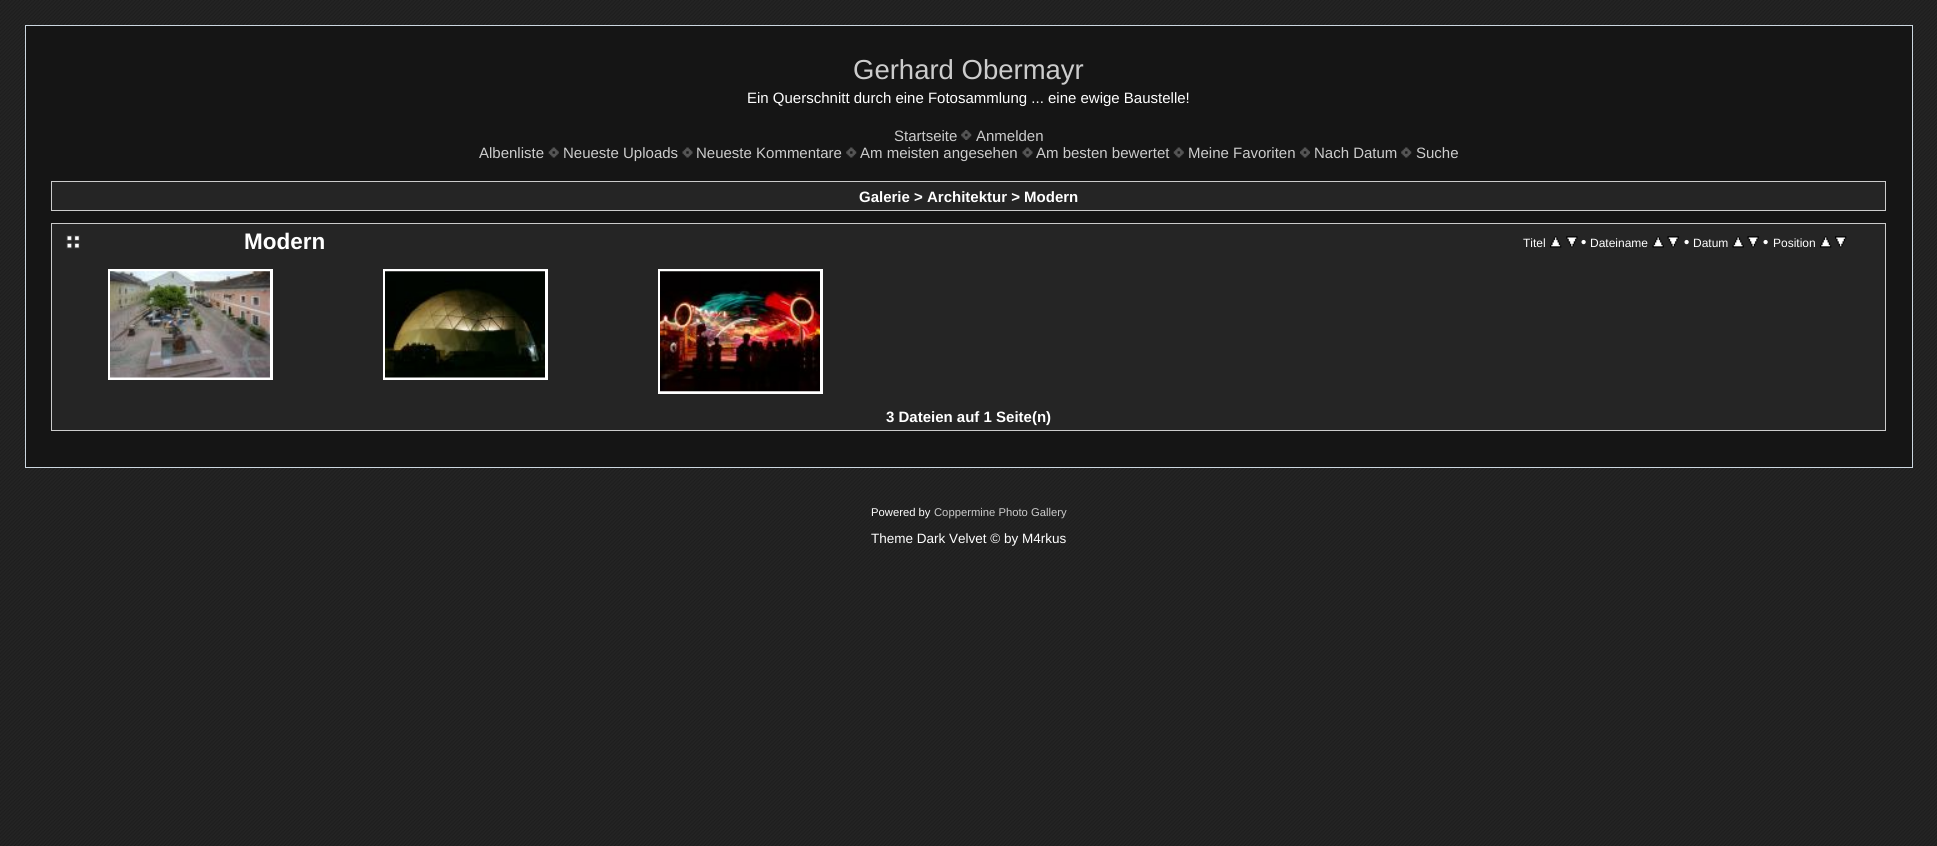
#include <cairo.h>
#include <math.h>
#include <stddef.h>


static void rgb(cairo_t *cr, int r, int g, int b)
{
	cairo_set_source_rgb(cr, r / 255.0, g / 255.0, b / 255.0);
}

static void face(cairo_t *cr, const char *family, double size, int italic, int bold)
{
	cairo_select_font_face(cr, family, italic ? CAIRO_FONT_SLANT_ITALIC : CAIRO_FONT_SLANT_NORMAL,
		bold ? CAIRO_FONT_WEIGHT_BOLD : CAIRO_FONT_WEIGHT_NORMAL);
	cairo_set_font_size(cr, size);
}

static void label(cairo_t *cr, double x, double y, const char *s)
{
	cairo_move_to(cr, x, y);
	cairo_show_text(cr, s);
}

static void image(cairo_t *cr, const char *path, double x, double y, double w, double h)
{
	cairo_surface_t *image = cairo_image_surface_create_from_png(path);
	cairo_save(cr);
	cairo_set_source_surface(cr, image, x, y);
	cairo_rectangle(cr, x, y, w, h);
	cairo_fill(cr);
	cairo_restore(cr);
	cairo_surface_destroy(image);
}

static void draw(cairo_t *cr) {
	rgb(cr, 255, 255, 255);
	cairo_paint(cr);
	image(cr, "image0.png", 0, 0, 1937, 846);
	rgb(cr, 21, 21, 21);
	cairo_rectangle(cr, 25.5, 25.5, 1887, 442);
	cairo_fill_preserve(cr);
	rgb(cr, 204, 215, 224);
	cairo_set_line_width(cr, 1);
	cairo_stroke(cr);
	face(cr, "Liberation Sans", 27.5, 0, 0);
	rgb(cr, 204, 204, 204);
	label(cr, 853, 79, "Gerhard Obermayr");
	face(cr, "Liberation Sans", 15, 0, 0);
	rgb(cr, 255, 255, 255);
	label(cr, 747, 103, "Ein Querschnitt durch eine Fotosammlung ... eine ewige Baustelle!");
	rgb(cr, 204, 204, 204);
	label(cr, 894, 141, "Startseite");
	image(cr, "image1.png", 961, 130, 11, 10);
	label(cr, 976, 141, "Anmelden");
	label(cr, 479, 158, "Albenliste");
	image(cr, "image2.png", 548, 147, 11, 11);
	label(cr, 563, 158, "Neueste Uploads");
	image(cr, "image3.png", 682, 147, 11, 11);
	label(cr, 696, 158, "Neueste Kommentare");
	image(cr, "image4.png", 846, 147, 11, 11);
	label(cr, 860, 158, "Am meisten angesehen");
	image(cr, "image3.png", 1022, 147, 11, 11);
	label(cr, 1036, 158, "Am besten bewertet");
	image(cr, "image2.png", 1173, 147, 11, 11);
	label(cr, 1188, 158, "Meine Favoriten");
	image(cr, "image5.png", 1300, 147, 10, 11);
	label(cr, 1314, 158, "Nach Datum");
	image(cr, "image4.png", 1401, 147, 11, 11);
	label(cr, 1416, 158, "Suche");
	rgb(cr, 37, 37, 37);
	cairo_rectangle(cr, 51.5, 181.5, 1834, 29);
	cairo_fill_preserve(cr);
	rgb(cr, 204, 204, 204);
	cairo_stroke(cr);
	face(cr, "Liberation Sans", 15, 0, 1);
	rgb(cr, 255, 255, 255);
	label(cr, 859, 202, "Galerie > Architektur > Modern");
	rgb(cr, 37, 37, 37);
	cairo_rectangle(cr, 51.5, 223.5, 1834, 207);
	cairo_fill_preserve(cr);
	rgb(cr, 204, 204, 204);
	cairo_stroke(cr);
	image(cr, "image6.png", 66, 235, 14, 14);
	face(cr, "Liberation Sans", 22.5, 0, 1);
	rgb(cr, 255, 255, 255);
	label(cr, 244, 249, "Modern");
	face(cr, "Liberation Sans", 12, 0, 0);
	label(cr, 1523, 247, "Titel");
	image(cr, "image7.png", 1550, 236, 12, 12);
	image(cr, "image8.png", 1566, 236, 12, 12);
	face(cr, "Liberation Sans", 15, 0, 1);
	label(cr, 1581, 247, "•");
	face(cr, "Liberation Sans", 12, 0, 0);
	label(cr, 1590, 247, "Dateiname");
	image(cr, "image9.png", 1652, 236, 12, 12);
	image(cr, "image10.png", 1667, 236, 12, 12);
	face(cr, "Liberation Sans", 15, 0, 1);
	label(cr, 1684, 247, "•");
	face(cr, "Liberation Sans", 12, 0, 0);
	label(cr, 1693, 247, "Datum");
	image(cr, "image11.png", 1732, 236, 12, 12);
	image(cr, "image12.png", 1747, 236, 12, 12);
	face(cr, "Liberation Sans", 15, 0, 1);
	label(cr, 1763, 247, "•");
	face(cr, "Liberation Sans", 12, 0, 0);
	label(cr, 1773, 247, "Position");
	image(cr, "image7.png", 1820, 236, 12, 12);
	image(cr, "image13.png", 1835, 236, 12, 12);
	cairo_rectangle(cr, 109.5, 270.5, 162, 108);
	cairo_set_line_width(cr, 3);
	cairo_stroke(cr);
	image(cr, "image14.png", 110, 271, 160, 107);
	cairo_rectangle(cr, 384.5, 270.5, 162, 108);
	cairo_stroke(cr);
	image(cr, "image15.png", 385, 271, 160, 107);
	cairo_rectangle(cr, 659.5, 270.5, 162, 122);
	cairo_stroke(cr);
	image(cr, "image16.png", 660, 271, 160, 121);
	face(cr, "Liberation Sans", 15, 0, 1);
	label(cr, 886, 422, "3 Dateien auf 1 Seite(n)");
	face(cr, "Liberation Sans", 11.25, 0, 0);
	label(cr, 871, 516, "Powered by");
	rgb(cr, 204, 204, 204);
	label(cr, 934, 516, "Coppermine Photo Gallery");
	face(cr, "Liberation Sans", 13.5, 0, 0);
	rgb(cr, 255, 255, 255);
	label(cr, 871, 543, "Theme Dark Velvet © by M4rkus");
}

int main(void) {
	cairo_surface_t *surface = cairo_image_surface_create(CAIRO_FORMAT_RGB24, 1937, 846);
	cairo_t *cr = cairo_create(surface);
	cairo_font_options_t *options = cairo_font_options_create();
	cairo_font_options_set_hint_metrics(options, CAIRO_HINT_METRICS_OFF);
	cairo_font_options_set_hint_style(options, CAIRO_HINT_STYLE_NONE);
	cairo_set_font_options(cr, options);
	cairo_set_miter_limit(cr, 4);
	draw(cr);
	cairo_surface_write_to_png(surface, "render.png");
	cairo_font_options_destroy(options);
	cairo_destroy(cr);
	cairo_surface_destroy(surface);
	return 0;
}
